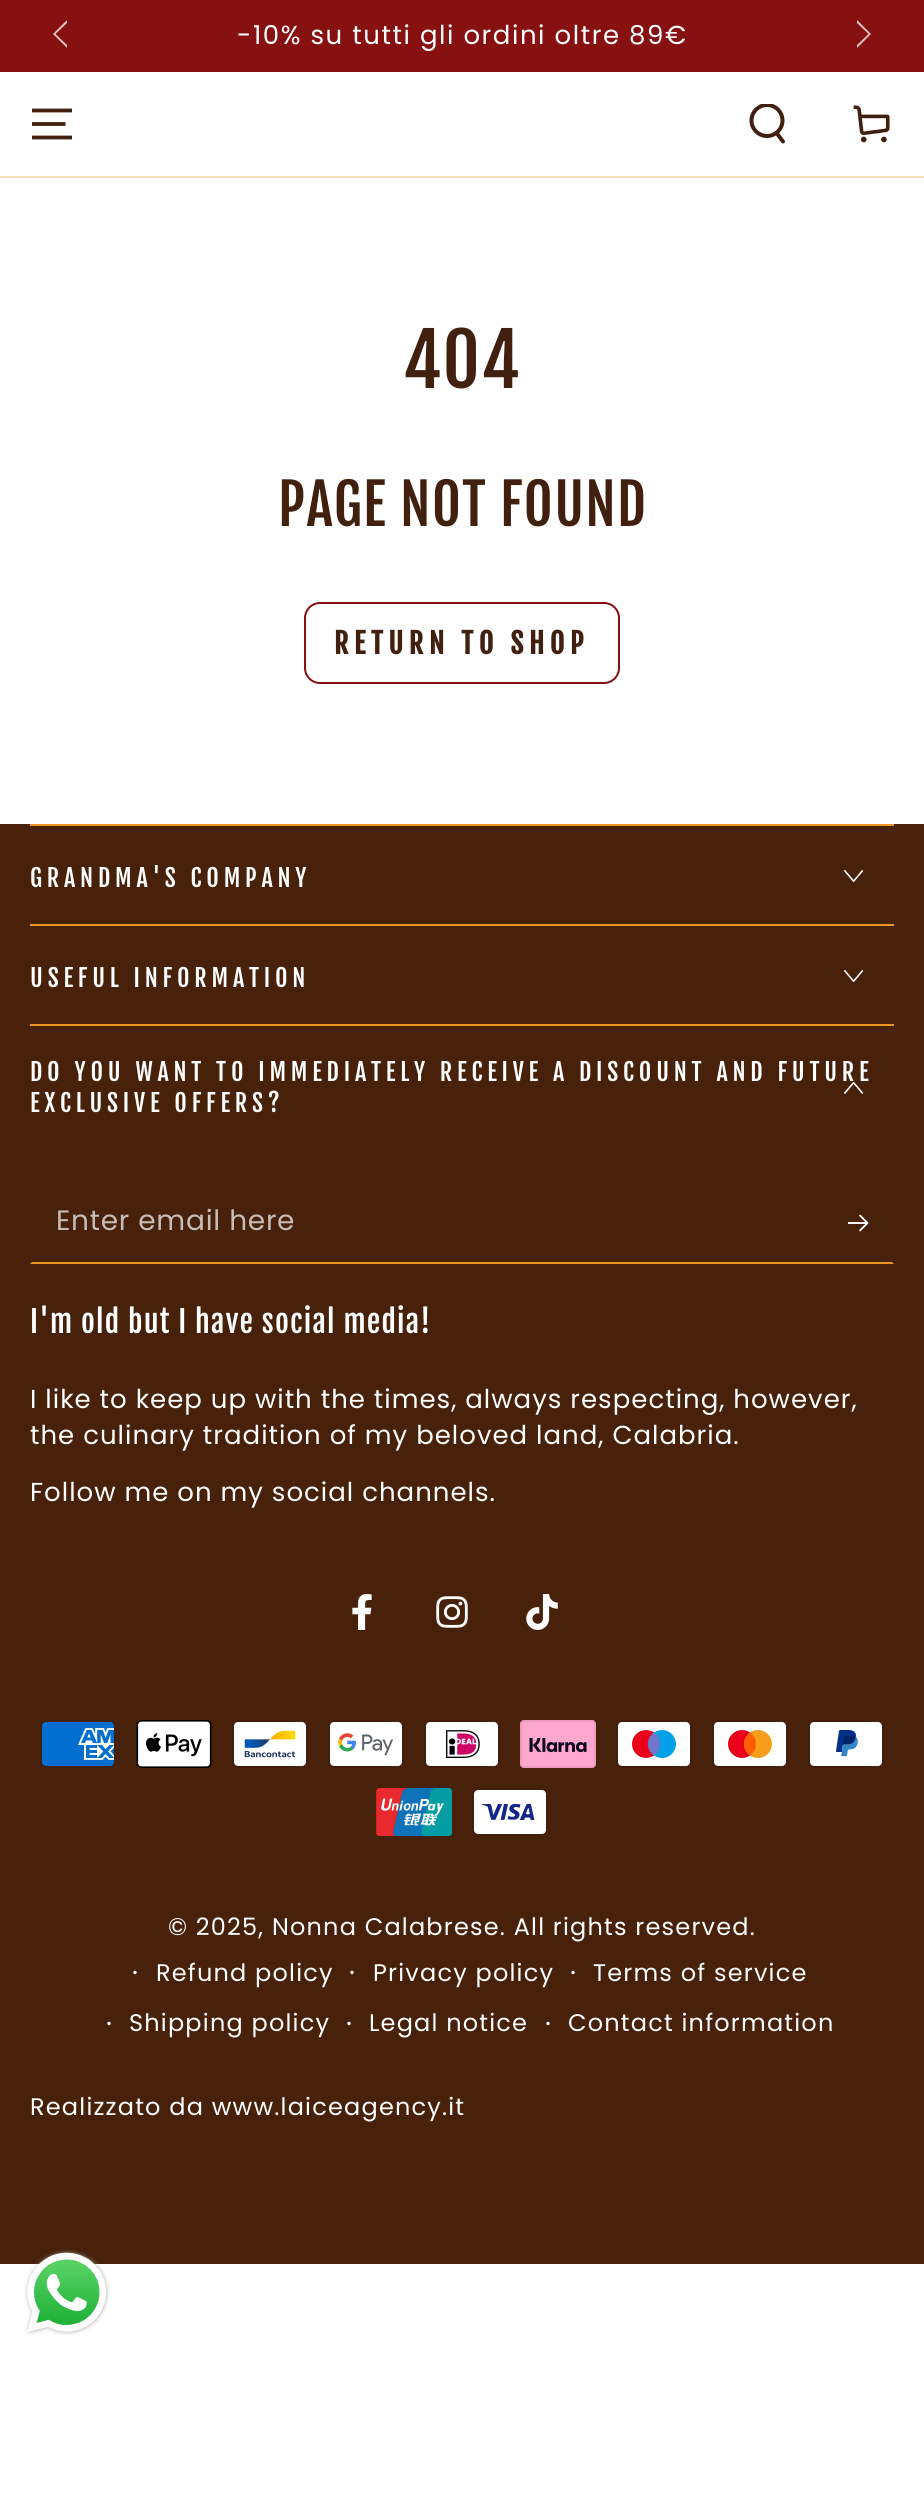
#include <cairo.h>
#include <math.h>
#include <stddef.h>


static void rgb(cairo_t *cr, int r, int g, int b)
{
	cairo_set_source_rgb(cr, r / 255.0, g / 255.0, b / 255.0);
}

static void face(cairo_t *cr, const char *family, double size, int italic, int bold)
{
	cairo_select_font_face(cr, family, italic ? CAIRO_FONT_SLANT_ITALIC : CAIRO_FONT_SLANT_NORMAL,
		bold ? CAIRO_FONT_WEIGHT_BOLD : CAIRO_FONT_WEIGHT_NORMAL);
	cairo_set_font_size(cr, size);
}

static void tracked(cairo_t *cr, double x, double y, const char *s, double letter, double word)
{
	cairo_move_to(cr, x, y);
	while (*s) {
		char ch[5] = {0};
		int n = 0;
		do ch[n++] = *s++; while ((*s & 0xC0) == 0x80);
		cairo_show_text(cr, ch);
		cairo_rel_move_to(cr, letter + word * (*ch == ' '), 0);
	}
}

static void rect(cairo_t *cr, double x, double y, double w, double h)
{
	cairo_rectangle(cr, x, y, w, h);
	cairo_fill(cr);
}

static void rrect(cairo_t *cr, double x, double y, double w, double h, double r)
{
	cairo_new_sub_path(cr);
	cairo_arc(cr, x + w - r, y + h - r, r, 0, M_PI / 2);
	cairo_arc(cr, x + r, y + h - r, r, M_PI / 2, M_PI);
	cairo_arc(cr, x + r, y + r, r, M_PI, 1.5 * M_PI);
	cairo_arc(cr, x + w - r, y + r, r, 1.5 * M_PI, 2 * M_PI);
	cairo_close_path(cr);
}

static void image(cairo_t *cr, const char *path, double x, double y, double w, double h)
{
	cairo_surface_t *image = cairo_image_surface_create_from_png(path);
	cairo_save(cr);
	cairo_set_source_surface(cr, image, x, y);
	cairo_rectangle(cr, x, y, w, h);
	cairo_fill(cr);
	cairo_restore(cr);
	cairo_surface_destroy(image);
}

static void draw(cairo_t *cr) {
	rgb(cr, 255, 255, 255);
	cairo_paint(cr);
	rgb(cr, 135, 16, 16);
	rect(cr, 0, 0, 924, 72);
	rgb(cr, 225, 195, 195);
	cairo_set_fill_rule(cr, CAIRO_FILL_RULE_EVEN_ODD);
	cairo_new_path(cr);
	cairo_move_to(cr, 53, 34);
	cairo_line_to(cr, 67, 48);
	cairo_line_to(cr, 67, 45);
	cairo_line_to(cr, 55.5, 34);
	cairo_line_to(cr, 67, 23);
	cairo_line_to(cr, 67, 20);
	cairo_close_path(cr);
	cairo_fill(cr);
	cairo_new_path(cr);
	cairo_move_to(cr, 871, 34);
	cairo_line_to(cr, 857, 48);
	cairo_line_to(cr, 857, 45);
	cairo_line_to(cr, 868.5, 34);
	cairo_line_to(cr, 857, 23);
	cairo_line_to(cr, 857, 20);
	cairo_close_path(cr);
	cairo_fill(cr);
	face(cr, "Poppins", 26, 0, 0);
	rgb(cr, 255, 255, 255);
	tracked(cr, 237, 44, "-10% su tutti gli ordini oltre 89€", 1.55, 0);
	rgb(cr, 248, 224, 188);
	rect(cr, 0, 176, 924, 2);
	cairo_new_path(cr);
	cairo_move_to(cr, 32, 137.5);
	cairo_line_to(cr, 72, 137.5);
	cairo_move_to(cr, 32, 124);
	cairo_line_to(cr, 65.5, 124);
	cairo_move_to(cr, 32, 110.5);
	cairo_line_to(cr, 72, 110.5);
	rgb(cr, 66, 32, 15);
	cairo_set_line_width(cr, 3.8);
	cairo_stroke(cr);
	cairo_save(cr);
	cairo_set_fill_rule(cr, CAIRO_FILL_RULE_WINDING);
	cairo_rectangle(cr, 748, 104, 40, 40);
	cairo_clip(cr);
	cairo_arc(cr, 767, 120.5, 15.5, 0, 2 * M_PI);
	cairo_set_line_width(cr, 4);
	cairo_stroke(cr);
	cairo_restore(cr);
	cairo_new_path(cr);
	cairo_move_to(cr, 776.5, 133);
	cairo_line_to(cr, 783, 141.5);
	cairo_set_line_width(cr, 4);
	cairo_set_line_cap(cr, CAIRO_LINE_CAP_ROUND);
	cairo_stroke(cr);
	image(cr, "image0.png", 853, 105, 37, 38);
	face(cr, "Fjalla One", 72, 0, 0);
	tracked(cr, 403, 388, "404", 1.2, 0);
	face(cr, "Fjalla One", 56, 0, 0);
	tracked(cr, 278, 526, "PAGE NOT FOUND", 1.2, 0);
	rrect(cr, 305, 603, 314, 80, 15);
	rgb(cr, 135, 16, 16);
	cairo_set_line_width(cr, 2);
	cairo_set_line_cap(cr, CAIRO_LINE_CAP_BUTT);
	cairo_stroke(cr);
	face(cr, "Fjalla One", 28, 0, 1);
	rgb(cr, 66, 32, 15);
	tracked(cr, 334, 654, "RETURN TO SHOP", 5.6, 0);
	rgb(cr, 71, 33, 10);
	rect(cr, 0, 824, 924, 1440);
	rgb(cr, 232, 150, 31);
	rect(cr, 30, 824, 864, 2);
	rect(cr, 30, 924, 864, 2);
	face(cr, "Fjalla One", 24, 0, 0);
	rgb(cr, 255, 255, 255);
	tracked(cr, 30, 887, "GRANDMA'S COMPANY", 4.8, 0);
	image(cr, "image1.png", 844, 870, 20, 12);
	rgb(cr, 232, 150, 31);
	rect(cr, 30, 1024, 864, 2);
	rgb(cr, 255, 255, 255);
	tracked(cr, 30, 987, "USEFUL INFORMATION", 4.8, 0);
	image(cr, "image1.png", 844, 970, 20, 12);
	tracked(cr, 30, 1081, "DO YOU WANT TO IMMEDIATELY RECEIVE A DISCOUNT AND FUTURE", 4.8, 0);
	tracked(cr, 30, 1112, "EXCLUSIVE OFFERS?", 4.8, 0);
	image(cr, "image2.png", 844, 1082, 20, 12);
	rgb(cr, 232, 150, 31);
	cairo_set_fill_rule(cr, CAIRO_FILL_RULE_WINDING);
	cairo_new_path(cr);
	cairo_move_to(cr, 894, 1264);
	cairo_line_to(cr, 30, 1264);
	cairo_line_to(cr, 32, 1262);
	cairo_line_to(cr, 892, 1262);
	cairo_close_path(cr);
	cairo_fill(cr);
	face(cr, "Poppins", 28, 0, 0);
	rgb(cr, 200, 188, 182);
	tracked(cr, 56, 1230, "Enter email here", 0.75, 0);
	image(cr, "image3.png", 848, 1214, 21, 18);
	face(cr, "Fjalla One", 30, 0, 0);
	rgb(cr, 255, 255, 255);
	tracked(cr, 30, 1333, "I'm old but I have social media!", 1.2, 0);
	face(cr, "Poppins", 26, 0, 0);
	tracked(cr, 30, 1408, "I like to keep up with the times, always respecting, however,", 1, 0);
	tracked(cr, 30, 1444, "the culinary tradition of my beloved land, Calabria.", 1, 0);
	tracked(cr, 30, 1501, "Follow me on my social channels.", 1, 0);
	image(cr, "image4.png", 352, 1594, 20, 36);
	image(cr, "image5.png", 436, 1596, 32, 32);
	image(cr, "image6.png", 526, 1594, 32, 36);
	image(cr, "image7.png", 40, 1720, 76, 48);
	image(cr, "image8.png", 136, 1720, 76, 48);
	image(cr, "image9.png", 232, 1720, 76, 48);
	image(cr, "image10.png", 328, 1720, 76, 48);
	image(cr, "image11.png", 424, 1720, 76, 48);
	image(cr, "image12.png", 520, 1720, 76, 48);
	image(cr, "image13.png", 616, 1720, 76, 48);
	image(cr, "image14.png", 712, 1720, 76, 48);
	image(cr, "image15.png", 808, 1720, 76, 48);
	image(cr, "image16.png", 376, 1788, 76, 48);
	image(cr, "image17.png", 472, 1788, 76, 48);
	face(cr, "Poppins", 24, 0, 0);
	tracked(cr, 168, 1935, "© 2025, Nonna Calabrese. All rights reserved.", 1.2, 0);
	face(cr, "Poppins", 28, 0, 0);
	tracked(cr, 132, 1982, "·", 1.2, 0);
	face(cr, "Poppins", 24, 0, 0);
	tracked(cr, 156, 1981, "Refund policy", 1.2, 0);
	face(cr, "Poppins", 28, 0, 0);
	tracked(cr, 349, 1982, "·", 1.2, 0);
	face(cr, "Poppins", 24, 0, 0);
	tracked(cr, 373, 1981, "Privacy policy", 1.2, 0);
	face(cr, "Poppins", 28, 0, 0);
	tracked(cr, 570, 1982, "·", 1.2, 0);
	face(cr, "Poppins", 24, 0, 0);
	tracked(cr, 593, 1981, "Terms of service", 1.2, 0);
	face(cr, "Poppins", 28, 0, 0);
	tracked(cr, 106, 2033, "·", 1.2, 0);
	face(cr, "Poppins", 24, 0, 0);
	tracked(cr, 129, 2031, "Shipping policy", 1.2, 0);
	face(cr, "Poppins", 28, 0, 0);
	tracked(cr, 346, 2033, "·", 1.2, 0);
	face(cr, "Poppins", 24, 0, 0);
	tracked(cr, 369, 2031, "Legal notice", 1.2, 0);
	face(cr, "Poppins", 28, 0, 0);
	tracked(cr, 545, 2033, "·", 1.2, 0);
	face(cr, "Poppins", 24, 0, 0);
	tracked(cr, 568, 2031, "Contact information", 1.2, 0);
	tracked(cr, 30, 2115, "Realizzato da www.laiceagency.it", 1.2, 0);
	image(cr, "image18.png", 24, 2249, 86, 86);
}

int main(void) {
	cairo_surface_t *surface = cairo_image_surface_create(CAIRO_FORMAT_RGB24, 924, 2519);
	cairo_t *cr = cairo_create(surface);
	cairo_font_options_t *options = cairo_font_options_create();
	cairo_font_options_set_hint_metrics(options, CAIRO_HINT_METRICS_OFF);
	cairo_font_options_set_hint_style(options, CAIRO_HINT_STYLE_NONE);
	cairo_set_font_options(cr, options);
	cairo_set_miter_limit(cr, 4);
	draw(cr);
	cairo_surface_write_to_png(surface, "render.png");
	cairo_font_options_destroy(options);
	cairo_destroy(cr);
	cairo_surface_destroy(surface);
	return 0;
}
